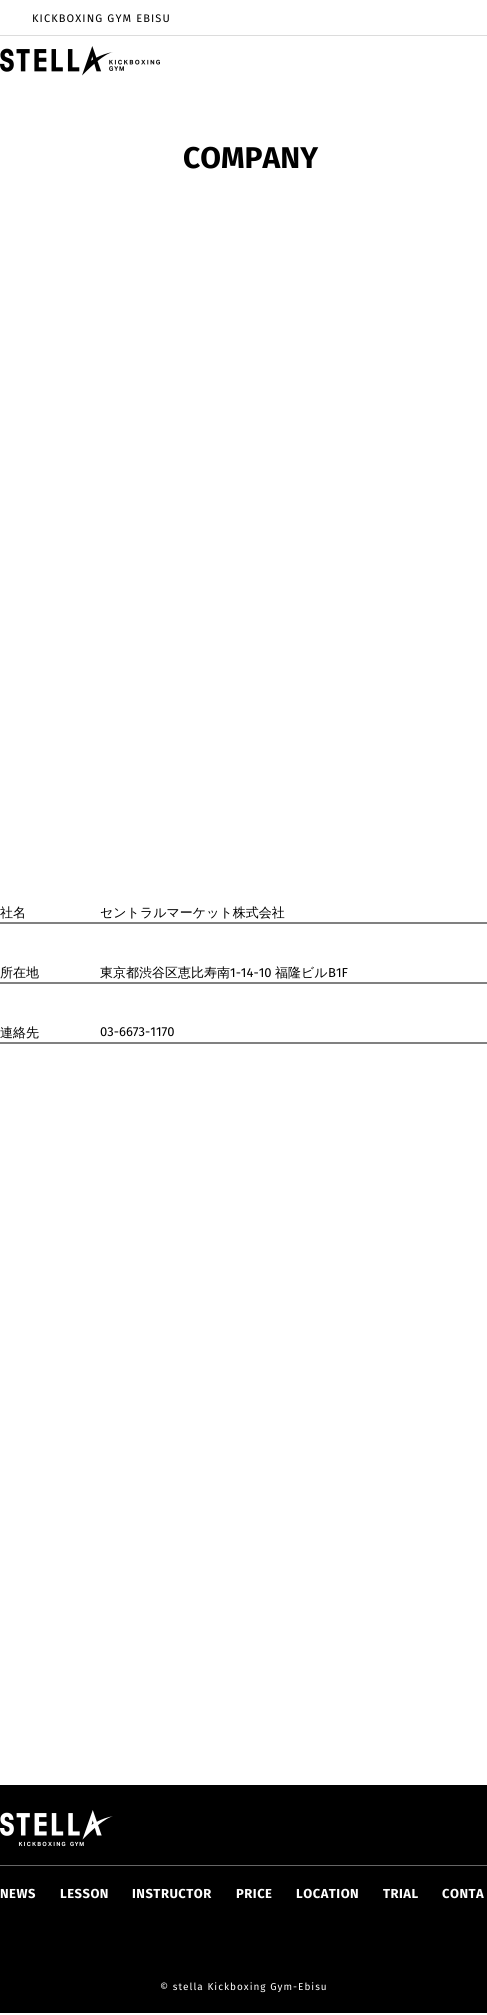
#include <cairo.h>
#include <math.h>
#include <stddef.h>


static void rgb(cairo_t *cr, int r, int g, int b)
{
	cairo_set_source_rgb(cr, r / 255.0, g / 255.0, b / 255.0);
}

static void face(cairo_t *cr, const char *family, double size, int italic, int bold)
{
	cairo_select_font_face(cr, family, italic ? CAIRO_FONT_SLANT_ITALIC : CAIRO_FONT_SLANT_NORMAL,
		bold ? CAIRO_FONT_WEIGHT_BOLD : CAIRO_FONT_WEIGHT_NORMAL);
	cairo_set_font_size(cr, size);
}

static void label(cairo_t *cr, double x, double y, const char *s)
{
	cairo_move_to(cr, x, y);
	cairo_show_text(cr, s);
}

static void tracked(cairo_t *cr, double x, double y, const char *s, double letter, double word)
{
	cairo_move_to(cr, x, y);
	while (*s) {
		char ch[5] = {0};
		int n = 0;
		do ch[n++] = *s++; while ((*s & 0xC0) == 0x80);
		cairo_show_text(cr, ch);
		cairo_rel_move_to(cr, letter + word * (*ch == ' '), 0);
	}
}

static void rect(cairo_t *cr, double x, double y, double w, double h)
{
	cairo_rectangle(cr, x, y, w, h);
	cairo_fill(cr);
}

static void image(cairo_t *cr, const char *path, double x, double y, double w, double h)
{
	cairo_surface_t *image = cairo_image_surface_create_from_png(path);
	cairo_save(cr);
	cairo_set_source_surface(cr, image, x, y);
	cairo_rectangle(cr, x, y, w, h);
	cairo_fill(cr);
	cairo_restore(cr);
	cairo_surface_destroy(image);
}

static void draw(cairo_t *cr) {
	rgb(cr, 255, 255, 255);
	cairo_paint(cr);
	rgb(cr, 220, 220, 220);
	rect(cr, 0, 35, 487, 1);
	face(cr, "Fira Sans", 11, 0, 0);
	rgb(cr, 0, 0, 0);
	tracked(cr, 32, 22, "KICKBOXING GYM EBISU", 1.1, 0);
	image(cr, "image0.png", 0, 46, 160, 30);
	face(cr, "Fira Sans", 30, 0, 1);
	label(cr, 183, 168, "COMPANY");
	face(cr, "WenQuanYi Zen Hei Medium", 13, 0, 0);
	label(cr, 0, 917, "社名");
	label(cr, 100, 917, "セントラルマーケット株式会社");
	rgb(cr, 128, 128, 128);
	rect(cr, 0, 922, 487, 2);
	rgb(cr, 0, 0, 0);
	label(cr, 0, 977, "所在地");
	label(cr, 100, 977, "東京都渋谷区恵比寿南");
	face(cr, "Fira Sans", 13, 0, 0);
	label(cr, 230, 977, "1-14-10");
	face(cr, "WenQuanYi Zen Hei Medium", 13, 0, 0);
	label(cr, 275, 977, "福隆ビル");
	face(cr, "Fira Sans", 13, 0, 0);
	label(cr, 328, 977, "B1F");
	rgb(cr, 128, 128, 128);
	rect(cr, 0, 982, 487, 2);
	face(cr, "WenQuanYi Zen Hei Medium", 13, 0, 0);
	rgb(cr, 0, 0, 0);
	label(cr, 0, 1037, "連絡先");
	face(cr, "Fira Sans", 13, 0, 0);
	label(cr, 100, 1036, "03-6673-1170");
	rgb(cr, 128, 128, 128);
	rect(cr, 0, 1042, 487, 2);
	rgb(cr, 0, 0, 0);
	rect(cr, 0, 1785, 487, 228);
	rgb(cr, 102, 102, 102);
	rect(cr, 0, 1865, 487, 1);
	image(cr, "image1.png", 0, 1810, 113, 37);
	face(cr, "Fira Sans", 13, 0, 1);
	rgb(cr, 255, 255, 255);
	tracked(cr, 0, 1898, "NEWS", 0.5, 0);
	tracked(cr, 60, 1898, "LESSON", 0.5, 0);
	tracked(cr, 132, 1898, "INSTRUCTOR", 0.5, 0);
	tracked(cr, 236, 1898, "PRICE", 0.5, 0);
	tracked(cr, 296, 1898, "LOCATION", 0.5, 0);
	tracked(cr, 383, 1898, "TRIAL", 0.5, 0);
	tracked(cr, 442, 1898, "CONTA", 0.5, 0);
	face(cr, "Fira Sans", 10, 0, 0);
	tracked(cr, 160, 1990, "© stella Kickboxing Gym-Ebisu", 1, 0);
}

int main(void) {
	cairo_surface_t *surface = cairo_image_surface_create(CAIRO_FORMAT_RGB24, 487, 2015);
	cairo_t *cr = cairo_create(surface);
	cairo_font_options_t *options = cairo_font_options_create();
	cairo_font_options_set_hint_metrics(options, CAIRO_HINT_METRICS_OFF);
	cairo_font_options_set_hint_style(options, CAIRO_HINT_STYLE_NONE);
	cairo_set_font_options(cr, options);
	cairo_set_miter_limit(cr, 4);
	draw(cr);
	cairo_surface_write_to_png(surface, "render.png");
	cairo_font_options_destroy(options);
	cairo_destroy(cr);
	cairo_surface_destroy(surface);
	return 0;
}
